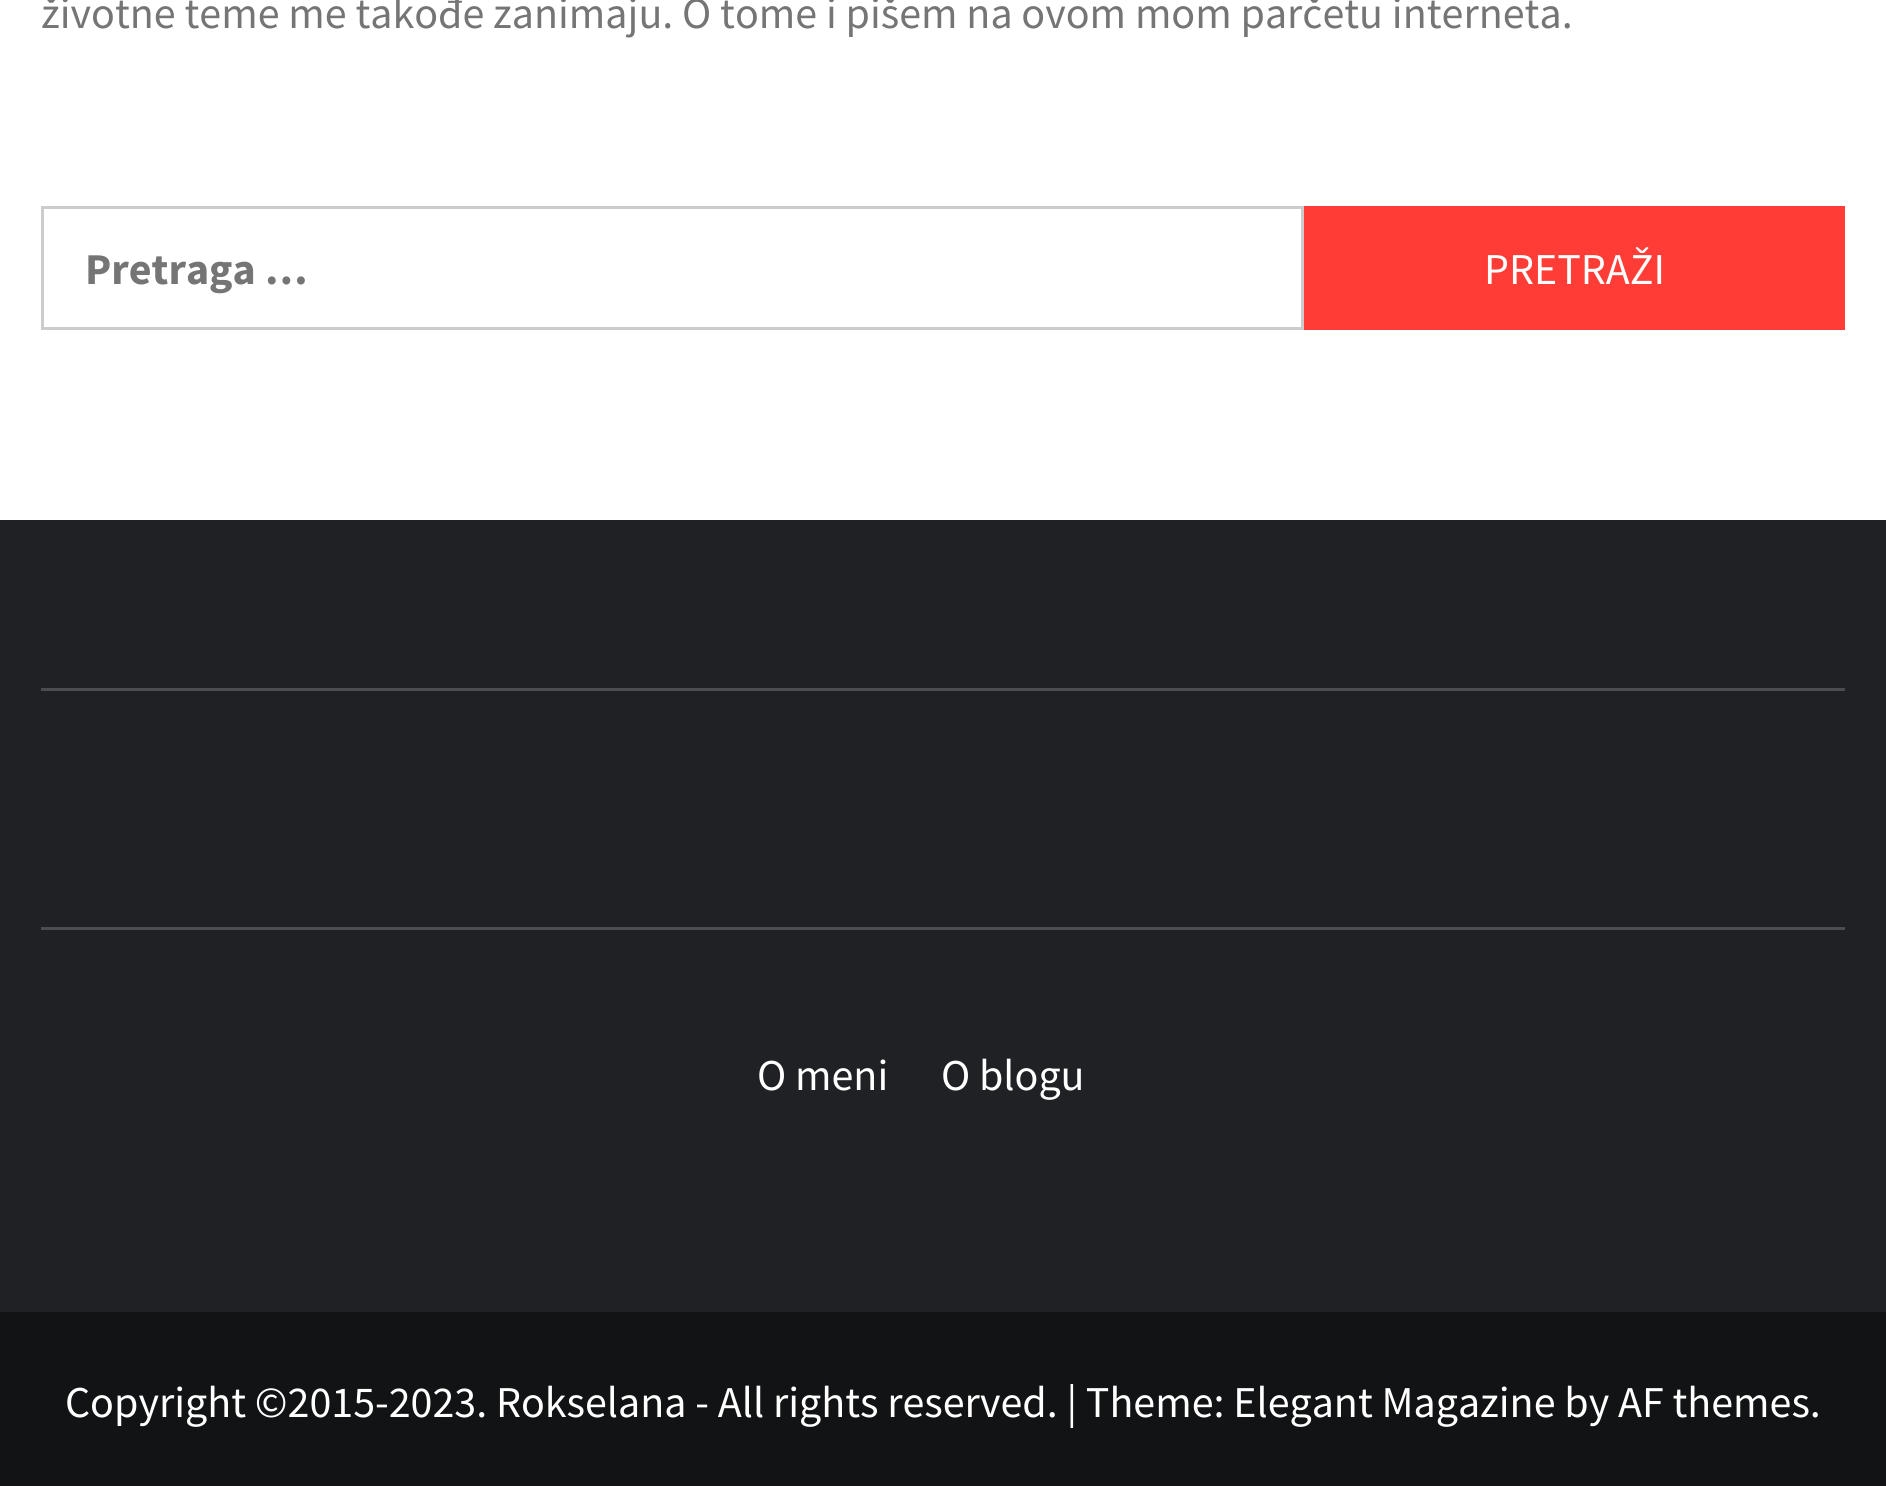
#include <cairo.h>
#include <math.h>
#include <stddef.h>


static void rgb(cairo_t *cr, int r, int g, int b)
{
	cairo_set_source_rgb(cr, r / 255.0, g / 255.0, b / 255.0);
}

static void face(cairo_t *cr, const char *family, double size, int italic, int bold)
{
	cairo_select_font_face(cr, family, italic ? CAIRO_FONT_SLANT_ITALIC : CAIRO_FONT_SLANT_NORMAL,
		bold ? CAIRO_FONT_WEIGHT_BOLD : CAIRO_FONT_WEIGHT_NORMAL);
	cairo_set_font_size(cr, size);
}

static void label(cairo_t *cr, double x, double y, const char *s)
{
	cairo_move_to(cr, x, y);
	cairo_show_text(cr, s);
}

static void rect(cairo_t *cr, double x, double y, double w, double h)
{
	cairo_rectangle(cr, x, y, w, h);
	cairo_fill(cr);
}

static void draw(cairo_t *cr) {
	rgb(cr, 255, 255, 255);
	cairo_paint(cr);
	face(cr, "Source Sans Pro", 44, 0, 0);
	rgb(cr, 117, 117, 117);
	label(cr, 41, 28, "životne teme me takođe zanimaju. O tome i pišem na ovom mom parčetu interneta.");
	cairo_rectangle(cr, 42.5, 207.5, 1260, 121);
	rgb(cr, 204, 204, 204);
	cairo_set_line_width(cr, 3);
	cairo_stroke(cr);
	face(cr, "Source Sans Pro", 44, 0, 1);
	rgb(cr, 117, 117, 117);
	label(cr, 85, 284, "Pretraga …");
	rgb(cr, 255, 60, 54);
	rect(cr, 1304, 206, 541, 124);
	face(cr, "Source Sans Pro", 44, 0, 0);
	rgb(cr, 255, 255, 255);
	label(cr, 1484, 284, "PRETRAŽI");
	rgb(cr, 31, 33, 37);
	rect(cr, 0, 520, 1886, 792);
	rgb(cr, 76, 77, 81);
	rect(cr, 41, 688, 1804, 3);
	rect(cr, 41, 927, 1804, 3);
	rgb(cr, 255, 255, 255);
	label(cr, 757, 1090, "O meni");
	label(cr, 941, 1090, "O blogu");
	rgb(cr, 18, 19, 20);
	rect(cr, 0, 1312, 1886, 174);
	rgb(cr, 255, 255, 255);
	label(cr, 65, 1417, "Copyright ©2015-2023. Rokselana - All rights reserved. | Theme: Elegant Magazine by AF themes.");
}

int main(void) {
	cairo_surface_t *surface = cairo_image_surface_create(CAIRO_FORMAT_RGB24, 1886, 1486);
	cairo_t *cr = cairo_create(surface);
	cairo_font_options_t *options = cairo_font_options_create();
	cairo_font_options_set_hint_metrics(options, CAIRO_HINT_METRICS_OFF);
	cairo_font_options_set_hint_style(options, CAIRO_HINT_STYLE_NONE);
	cairo_set_font_options(cr, options);
	cairo_set_miter_limit(cr, 4);
	draw(cr);
	cairo_surface_write_to_png(surface, "render.png");
	cairo_font_options_destroy(options);
	cairo_destroy(cr);
	cairo_surface_destroy(surface);
	return 0;
}
